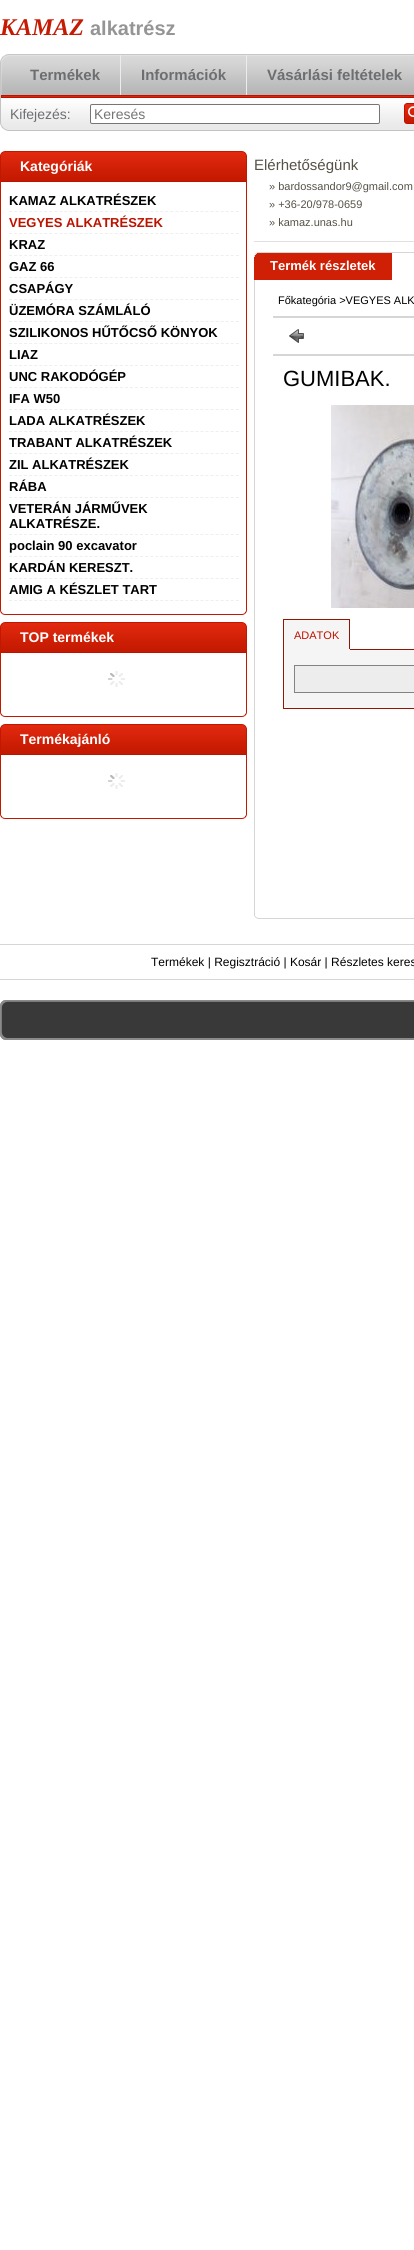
#include <cairo.h>
#include <math.h>
#include <stddef.h>


static void rgb(cairo_t *cr, int r, int g, int b)
{
	cairo_set_source_rgb(cr, r / 255.0, g / 255.0, b / 255.0);
}

static void face(cairo_t *cr, const char *family, double size, int italic, int bold)
{
	cairo_select_font_face(cr, family, italic ? CAIRO_FONT_SLANT_ITALIC : CAIRO_FONT_SLANT_NORMAL,
		bold ? CAIRO_FONT_WEIGHT_BOLD : CAIRO_FONT_WEIGHT_NORMAL);
	cairo_set_font_size(cr, size);
}

static void label(cairo_t *cr, double x, double y, const char *s)
{
	cairo_move_to(cr, x, y);
	cairo_show_text(cr, s);
}

static void rect(cairo_t *cr, double x, double y, double w, double h)
{
	cairo_rectangle(cr, x, y, w, h);
	cairo_fill(cr);
}

static void rrect(cairo_t *cr, double x, double y, double w, double h, double r)
{
	cairo_new_sub_path(cr);
	cairo_arc(cr, x + w - r, y + h - r, r, 0, M_PI / 2);
	cairo_arc(cr, x + r, y + h - r, r, M_PI / 2, M_PI);
	cairo_arc(cr, x + r, y + r, r, M_PI, 1.5 * M_PI);
	cairo_arc(cr, x + w - r, y + r, r, 1.5 * M_PI, 2 * M_PI);
	cairo_close_path(cr);
}

static void image(cairo_t *cr, const char *path, double x, double y, double w, double h)
{
	cairo_surface_t *image = cairo_image_surface_create_from_png(path);
	cairo_save(cr);
	cairo_set_source_surface(cr, image, x, y);
	cairo_rectangle(cr, x, y, w, h);
	cairo_fill(cr);
	cairo_restore(cr);
	cairo_surface_destroy(image);
}

static void draw(cairo_t *cr) {
	rgb(cr, 255, 255, 255);
	cairo_paint(cr);
	face(cr, "Liberation Serif", 24, 1, 1);
	rgb(cr, 198, 26, 2);
	label(cr, 0, 35, "KAMAZ");
	face(cr, "Liberation Sans", 20, 0, 1);
	rgb(cr, 149, 149, 149);
	label(cr, 90, 35, "alkatrész");
	image(cr, "image0.png", 0, 54, 10, 77);
	image(cr, "image1.png", 10, 54, 404, 77);
	rgb(cr, 236, 236, 236);
	rect(cr, 120, 55, 1, 40);
	face(cr, "Liberation Sans", 15, 0, 1);
	rgb(cr, 108, 110, 113);
	label(cr, 30, 80, "Termékek");
	rgb(cr, 236, 236, 236);
	rect(cr, 246, 55, 1, 40);
	rgb(cr, 108, 110, 113);
	label(cr, 141, 80, "Információk");
	label(cr, 267, 80, "Vásárlási feltételek");
	face(cr, "Liberation Sans", 14, 0, 0);
	label(cr, 10, 119, "Kifejezés:");
	rgb(cr, 255, 255, 255);
	rrect(cr, 90.5, 104.5, 289, 19, 1.5);
	cairo_fill_preserve(cr);
	rgb(cr, 118, 118, 118);
	cairo_set_line_width(cr, 1);
	cairo_stroke(cr);
	rgb(cr, 117, 117, 117);
	label(cr, 94, 119, "Keresés");
	image(cr, "image2.png", 404, 103, 10, 21);
	rgb(cr, 214, 214, 214);
	rect(cr, 254, 280, 1, 639);
	image(cr, "image3.png", 254, 916, 160, 3);
	image(cr, "image4.png", 0, 151, 247, 31);
	face(cr, "Liberation Sans", 14, 0, 1);
	rgb(cr, 255, 255, 255);
	label(cr, 20, 171, "Kategóriák");
	rgb(cr, 194, 24, 0);
	rect(cr, 246, 182, 1, 427);
	rect(cr, 0, 182, 1, 427);
	cairo_new_path(cr);
	cairo_move_to(cr, 9, 211.5);
	cairo_line_to(cr, 239, 211.5);
	rgb(cr, 239, 239, 239);
	cairo_set_dash(cr, (double[]){3, 2.04}, 2, 0);
	cairo_stroke(cr);
	face(cr, "Liberation Sans", 13, 0, 1);
	rgb(cr, 0, 0, 0);
	label(cr, 9, 205, "KAMAZ ALKATRÉSZEK");
	cairo_new_path(cr);
	cairo_move_to(cr, 9, 233.5);
	cairo_line_to(cr, 239, 233.5);
	rgb(cr, 239, 239, 239);
	cairo_stroke(cr);
	rgb(cr, 188, 19, 0);
	label(cr, 9, 227, "VEGYES ALKATRÉSZEK");
	cairo_new_path(cr);
	cairo_move_to(cr, 9, 255.5);
	cairo_line_to(cr, 239, 255.5);
	rgb(cr, 239, 239, 239);
	cairo_stroke(cr);
	rgb(cr, 0, 0, 0);
	label(cr, 9, 249, "KRAZ");
	cairo_new_path(cr);
	cairo_move_to(cr, 9, 277.5);
	cairo_line_to(cr, 239, 277.5);
	rgb(cr, 239, 239, 239);
	cairo_stroke(cr);
	rgb(cr, 0, 0, 0);
	label(cr, 9, 271, "GAZ 66");
	cairo_new_path(cr);
	cairo_move_to(cr, 9, 299.5);
	cairo_line_to(cr, 239, 299.5);
	rgb(cr, 239, 239, 239);
	cairo_stroke(cr);
	rgb(cr, 0, 0, 0);
	label(cr, 9, 293, "CSAPÁGY");
	cairo_new_path(cr);
	cairo_move_to(cr, 9, 321.5);
	cairo_line_to(cr, 239, 321.5);
	rgb(cr, 239, 239, 239);
	cairo_stroke(cr);
	rgb(cr, 0, 0, 0);
	label(cr, 9, 315, "ÜZEMÓRA SZÁMLÁLÓ");
	cairo_new_path(cr);
	cairo_move_to(cr, 9, 343.5);
	cairo_line_to(cr, 239, 343.5);
	rgb(cr, 239, 239, 239);
	cairo_stroke(cr);
	rgb(cr, 0, 0, 0);
	label(cr, 9, 337, "SZILIKONOS HŰTŐCSŐ KÖNYOK");
	cairo_new_path(cr);
	cairo_move_to(cr, 9, 365.5);
	cairo_line_to(cr, 239, 365.5);
	rgb(cr, 239, 239, 239);
	cairo_stroke(cr);
	rgb(cr, 0, 0, 0);
	label(cr, 9, 359, "LIAZ");
	cairo_new_path(cr);
	cairo_move_to(cr, 9, 387.5);
	cairo_line_to(cr, 239, 387.5);
	rgb(cr, 239, 239, 239);
	cairo_stroke(cr);
	rgb(cr, 0, 0, 0);
	label(cr, 9, 381, "UNC RAKODÓGÉP");
	cairo_new_path(cr);
	cairo_move_to(cr, 9, 409.5);
	cairo_line_to(cr, 239, 409.5);
	rgb(cr, 239, 239, 239);
	cairo_stroke(cr);
	rgb(cr, 0, 0, 0);
	label(cr, 9, 403, "IFA W50");
	cairo_new_path(cr);
	cairo_move_to(cr, 9, 431.5);
	cairo_line_to(cr, 239, 431.5);
	rgb(cr, 239, 239, 239);
	cairo_stroke(cr);
	rgb(cr, 0, 0, 0);
	label(cr, 9, 425, "LADA ALKATRÉSZEK");
	cairo_new_path(cr);
	cairo_move_to(cr, 9, 453.5);
	cairo_line_to(cr, 239, 453.5);
	rgb(cr, 239, 239, 239);
	cairo_stroke(cr);
	rgb(cr, 0, 0, 0);
	label(cr, 9, 447, "TRABANT ALKATRÉSZEK");
	cairo_new_path(cr);
	cairo_move_to(cr, 9, 475.5);
	cairo_line_to(cr, 239, 475.5);
	rgb(cr, 239, 239, 239);
	cairo_stroke(cr);
	rgb(cr, 0, 0, 0);
	label(cr, 9, 469, "ZIL ALKATRÉSZEK");
	cairo_new_path(cr);
	cairo_move_to(cr, 9, 497.5);
	cairo_line_to(cr, 239, 497.5);
	rgb(cr, 239, 239, 239);
	cairo_stroke(cr);
	rgb(cr, 0, 0, 0);
	label(cr, 9, 491, "RÁBA");
	cairo_new_path(cr);
	cairo_move_to(cr, 9, 534.5);
	cairo_line_to(cr, 239, 534.5);
	rgb(cr, 239, 239, 239);
	cairo_stroke(cr);
	rgb(cr, 0, 0, 0);
	label(cr, 9, 513, "VETERÁN JÁRMŰVEK");
	label(cr, 9, 528, "ALKATRÉSZE.");
	cairo_new_path(cr);
	cairo_move_to(cr, 9, 556.5);
	cairo_line_to(cr, 239, 556.5);
	rgb(cr, 239, 239, 239);
	cairo_stroke(cr);
	rgb(cr, 0, 0, 0);
	label(cr, 9, 550, "poclain 90 excavator");
	cairo_new_path(cr);
	cairo_move_to(cr, 9, 578.5);
	cairo_line_to(cr, 239, 578.5);
	rgb(cr, 239, 239, 239);
	cairo_stroke(cr);
	rgb(cr, 0, 0, 0);
	label(cr, 9, 572, "KARDÁN KERESZT.");
	cairo_new_path(cr);
	cairo_move_to(cr, 9, 600.5);
	cairo_line_to(cr, 239, 600.5);
	rgb(cr, 239, 239, 239);
	cairo_stroke(cr);
	rgb(cr, 0, 0, 0);
	label(cr, 9, 594, "AMIG A KÉSZLET TART");
	image(cr, "image5.png", 0, 609, 247, 6);
	image(cr, "image4.png", 0, 622, 247, 31);
	face(cr, "Liberation Sans", 14, 0, 1);
	rgb(cr, 255, 255, 255);
	label(cr, 20, 642, "TOP termékek");
	rgb(cr, 194, 24, 0);
	rect(cr, 246, 653, 1, 58);
	rect(cr, 0, 653, 1, 58);
	image(cr, "image6.png", 108, 671, 17, 16);
	image(cr, "image5.png", 0, 711, 247, 6);
	image(cr, "image4.png", 0, 724, 247, 31);
	rgb(cr, 255, 255, 255);
	label(cr, 20, 744, "Termékajánló");
	rgb(cr, 194, 24, 0);
	rect(cr, 246, 755, 1, 58);
	rect(cr, 0, 755, 1, 58);
	image(cr, "image6.png", 108, 773, 17, 16);
	image(cr, "image5.png", 0, 813, 247, 6);
	rgb(cr, 224, 224, 224);
	rect(cr, 254, 241, 160, 1);
	face(cr, "Liberation Sans", 15, 0, 0);
	rgb(cr, 86, 82, 71);
	label(cr, 254, 170, "Elérhetőségünk");
	face(cr, "Liberation Sans", 11, 0, 0);
	label(cr, 269, 190, "» bardossandor9@gmail.com");
	label(cr, 269, 208, "» +36-20/978-0659");
	label(cr, 269, 226, "» kamaz.unas.hu");
	rgb(cr, 207, 32, 6);
	rect(cr, 254, 253, 138, 27);
	image(cr, "image7.png", 254, 252, 160, 5);
	face(cr, "Liberation Sans", 13, 0, 1);
	rgb(cr, 255, 255, 255);
	label(cr, 270, 270, "Termék részletek");
	face(cr, "Liberation Sans", 11, 0, 0);
	rgb(cr, 0, 0, 0);
	label(cr, 278, 304, "Főkategória >VEGYES ALK");
	rgb(cr, 214, 214, 214);
	rect(cr, 273, 316, 141, 2);
	image(cr, "image8.png", 289, 329, 15, 14);
	rect(cr, 273, 354, 141, 2);
	face(cr, "Liberation Sans", 22, 0, 0);
	rgb(cr, 0, 0, 0);
	label(cr, 283, 386, "GUMIBAK.");
	image(cr, "image9.png", 331, 405, 83, 203);
	rgb(cr, 245, 245, 245);
	rect(cr, 284, 620, 65, 29);
	rgb(cr, 145, 21, 3);
	rect(cr, 283, 619, 67, 1);
	rgb(cr, 245, 245, 245);
	cairo_rectangle(cr, 283.5, 649.5, 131, 59);
	cairo_fill_preserve(cr);
	rgb(cr, 145, 21, 3);
	cairo_set_dash(cr, NULL, 0, 0);
	cairo_stroke(cr);
	rect(cr, 349, 619, 1, 31);
	rgb(cr, 245, 245, 245);
	rect(cr, 283, 649, 67, 1);
	rgb(cr, 145, 21, 3);
	rect(cr, 283, 619, 1, 31);
	face(cr, "Liberation Sans", 11, 0, 0);
	rgb(cr, 188, 19, 0);
	label(cr, 294, 639, "ADATOK");
	cairo_rectangle(cr, 294.5, 665.5, 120, 27);
	rgb(cr, 131, 131, 131);
	cairo_stroke(cr);
	rgb(cr, 237, 237, 237);
	rect(cr, 295, 666, 119, 26);
	rgb(cr, 214, 214, 214);
	rect(cr, 0, 944, 414, 1);
	rect(cr, 0, 979, 414, 1);
	face(cr, "Liberation Sans", 12, 0, 0);
	rgb(cr, 0, 0, 0);
	label(cr, 151, 966, "Termékek | Regisztráció | Kosár | Részletes keres");
	image(cr, "image10.png", 0, 1000, 414, 40);
}

int main(void) {
	cairo_surface_t *surface = cairo_image_surface_create(CAIRO_FORMAT_RGB24, 414, 2250);
	cairo_t *cr = cairo_create(surface);
	cairo_font_options_t *options = cairo_font_options_create();
	cairo_font_options_set_hint_metrics(options, CAIRO_HINT_METRICS_OFF);
	cairo_font_options_set_hint_style(options, CAIRO_HINT_STYLE_NONE);
	cairo_set_font_options(cr, options);
	cairo_set_miter_limit(cr, 4);
	draw(cr);
	cairo_surface_write_to_png(surface, "render.png");
	cairo_font_options_destroy(options);
	cairo_destroy(cr);
	cairo_surface_destroy(surface);
	return 0;
}
